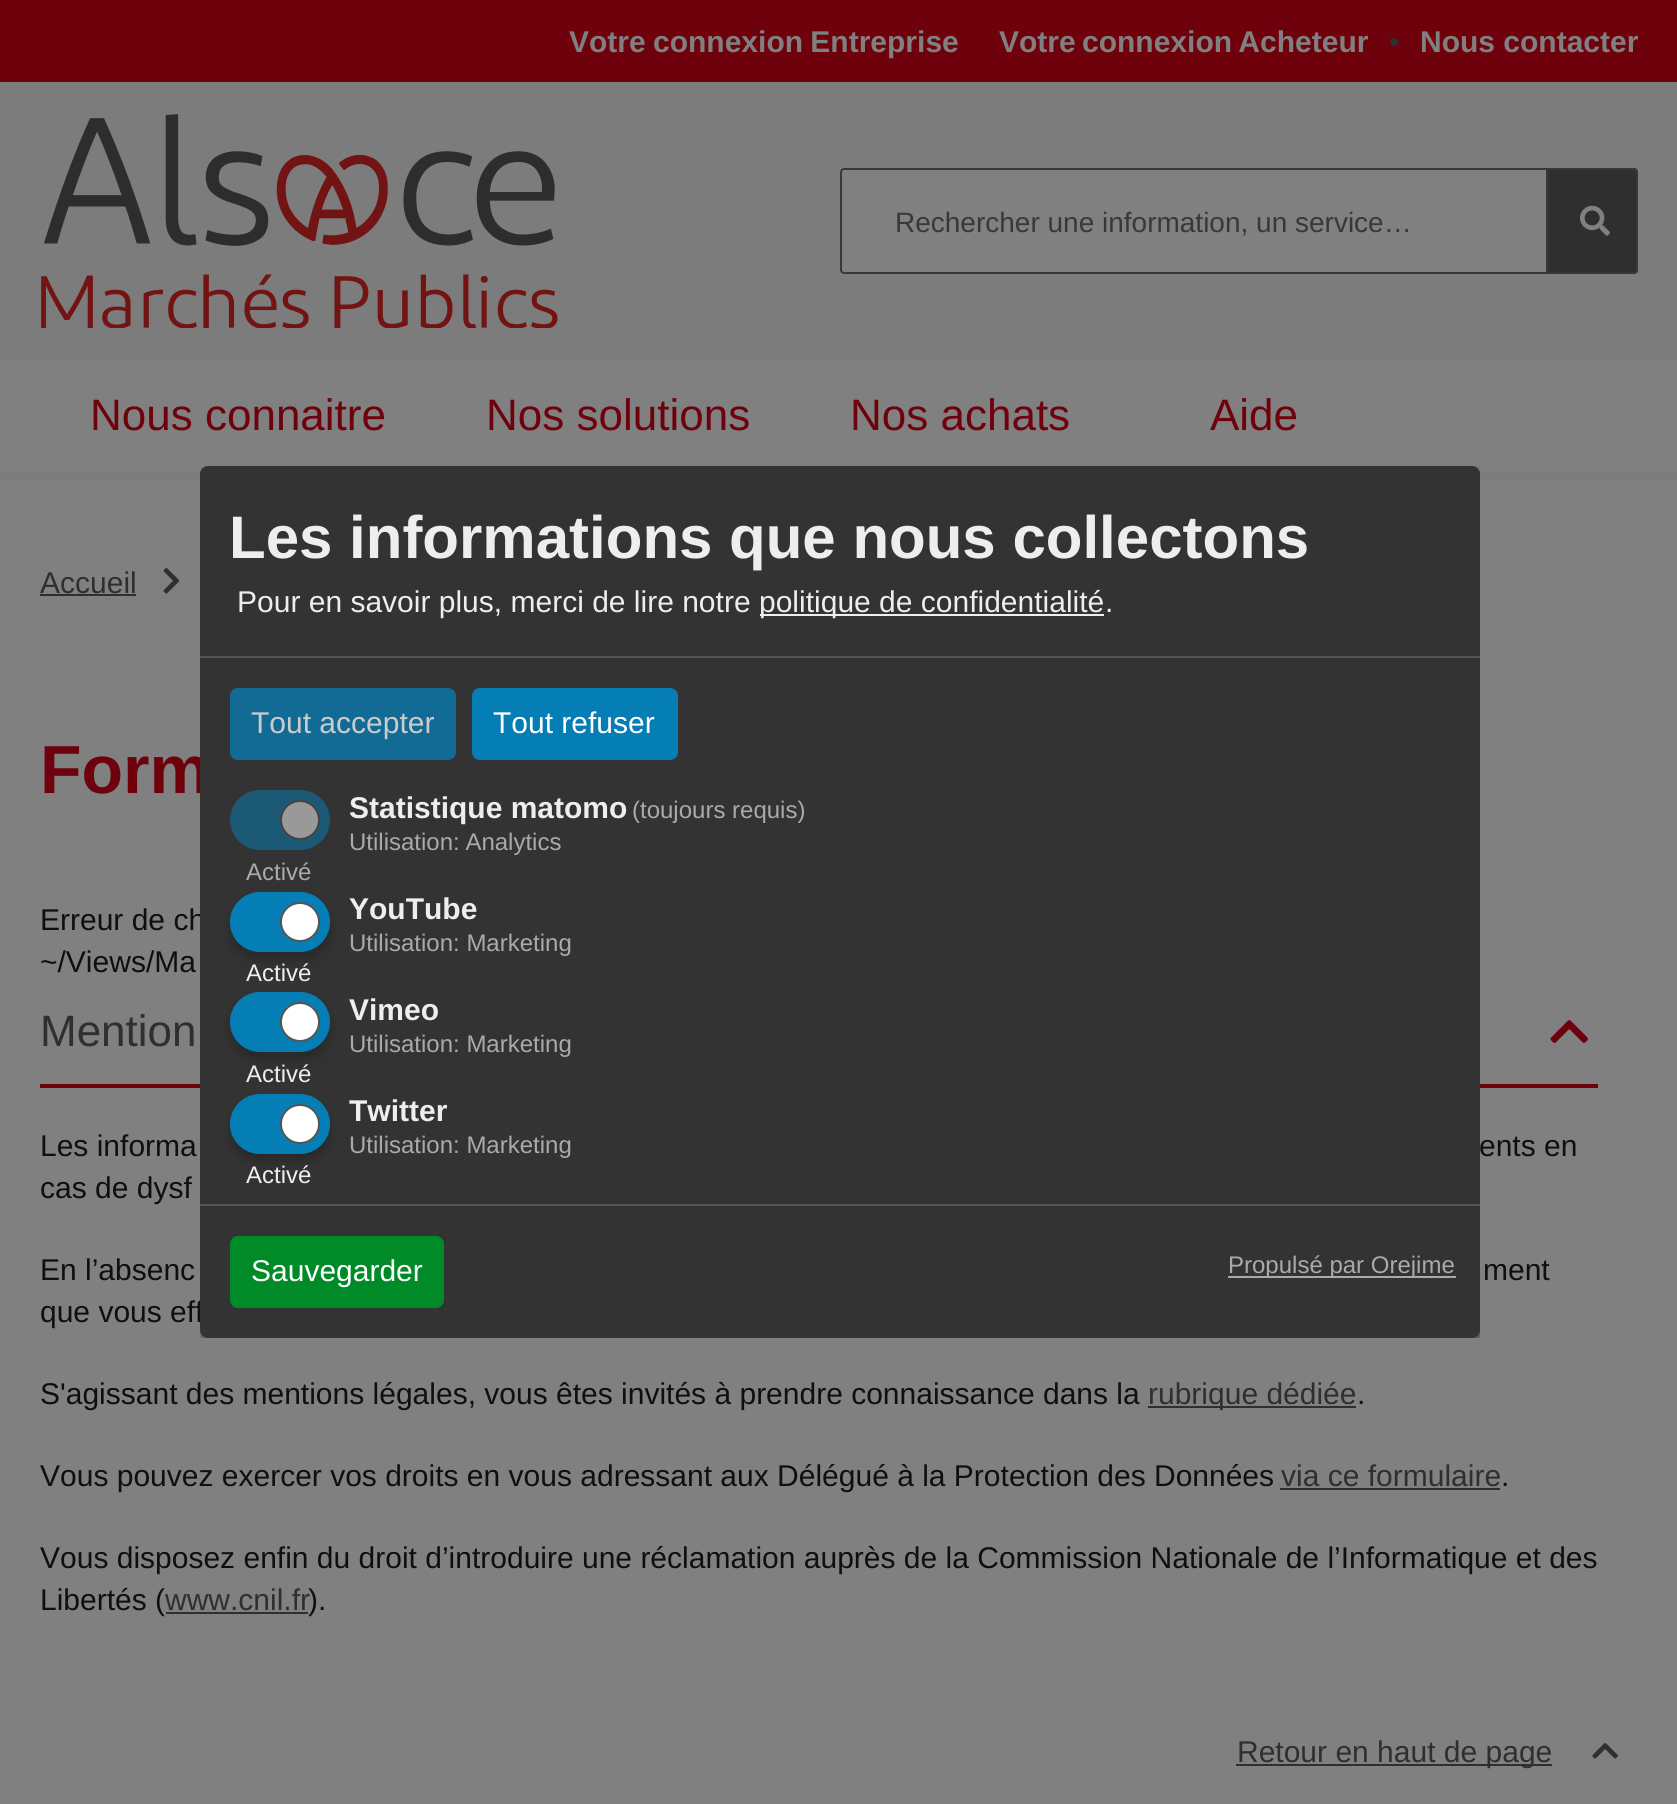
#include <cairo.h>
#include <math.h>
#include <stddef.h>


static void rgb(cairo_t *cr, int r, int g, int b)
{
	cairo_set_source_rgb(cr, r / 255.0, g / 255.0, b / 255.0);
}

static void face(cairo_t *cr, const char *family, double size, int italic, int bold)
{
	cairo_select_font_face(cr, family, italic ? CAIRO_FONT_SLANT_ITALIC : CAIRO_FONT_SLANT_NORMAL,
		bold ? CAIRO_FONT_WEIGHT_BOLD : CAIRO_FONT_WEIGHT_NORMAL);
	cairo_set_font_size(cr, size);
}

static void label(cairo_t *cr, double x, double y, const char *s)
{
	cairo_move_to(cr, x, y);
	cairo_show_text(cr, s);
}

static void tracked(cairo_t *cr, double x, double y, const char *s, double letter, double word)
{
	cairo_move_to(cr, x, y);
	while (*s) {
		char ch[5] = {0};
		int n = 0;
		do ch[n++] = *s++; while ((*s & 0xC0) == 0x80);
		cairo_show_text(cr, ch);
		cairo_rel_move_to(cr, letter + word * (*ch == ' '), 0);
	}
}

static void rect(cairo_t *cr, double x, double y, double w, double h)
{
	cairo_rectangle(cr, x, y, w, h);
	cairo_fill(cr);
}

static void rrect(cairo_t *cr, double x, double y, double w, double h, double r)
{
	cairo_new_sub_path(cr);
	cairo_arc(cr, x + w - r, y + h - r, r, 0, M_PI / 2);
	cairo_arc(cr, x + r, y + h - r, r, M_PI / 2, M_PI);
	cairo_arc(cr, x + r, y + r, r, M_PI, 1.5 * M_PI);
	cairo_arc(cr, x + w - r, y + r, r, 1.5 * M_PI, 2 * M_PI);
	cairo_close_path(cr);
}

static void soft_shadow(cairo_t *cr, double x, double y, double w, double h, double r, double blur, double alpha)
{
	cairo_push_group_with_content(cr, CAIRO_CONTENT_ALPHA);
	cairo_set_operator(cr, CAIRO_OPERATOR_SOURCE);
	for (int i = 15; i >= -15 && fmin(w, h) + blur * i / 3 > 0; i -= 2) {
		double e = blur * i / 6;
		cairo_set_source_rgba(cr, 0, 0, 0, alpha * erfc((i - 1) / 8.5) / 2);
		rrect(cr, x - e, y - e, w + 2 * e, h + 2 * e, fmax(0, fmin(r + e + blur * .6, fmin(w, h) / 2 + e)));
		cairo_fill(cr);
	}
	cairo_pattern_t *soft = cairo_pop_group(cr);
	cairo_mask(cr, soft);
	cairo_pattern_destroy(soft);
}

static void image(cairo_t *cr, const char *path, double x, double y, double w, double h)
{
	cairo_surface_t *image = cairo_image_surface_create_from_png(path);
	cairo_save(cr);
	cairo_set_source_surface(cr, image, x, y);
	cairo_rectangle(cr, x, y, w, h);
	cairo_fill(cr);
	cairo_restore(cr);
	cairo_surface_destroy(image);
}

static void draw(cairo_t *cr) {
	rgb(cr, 128, 128, 128);
	cairo_paint(cr);
	rgb(cr, 111, 1, 13);
	rect(cr, 0, 0, 1677, 82);
	face(cr, "Liberation Sans", 30, 0, 1);
	rgb(cr, 128, 128, 128);
	tracked(cr, 569, 52, "Votre connexion Entreprise", 0, -1);
	tracked(cr, 999, 52, "Votre connexion Acheteur", 0, -2);
	face(cr, "Liberation Sans", 30, 0, 0);
	rgb(cr, 47, 47, 47);
	label(cr, 1389, 52, "•");
	face(cr, "Liberation Sans", 30, 0, 1);
	rgb(cr, 128, 128, 128);
	label(cr, 1420, 52, "Nous contacter");
	rgb(cr, 124, 124, 124);
	rect(cr, 0, 82, 1677, 278);
	image(cr, "image0.png", 41, 114, 517, 214);
	rgb(cr, 128, 128, 128);
	cairo_new_path(cr);
	cairo_move_to(cr, 844, 169);
	cairo_line_to(cr, 1547, 169);
	cairo_line_to(cr, 1547, 273);
	cairo_line_to(cr, 844, 273);
	cairo_curve_to(cr, 842.5, 273, 841, 271.5, 841, 270);
	cairo_line_to(cr, 841, 172);
	cairo_curve_to(cr, 841, 170.5, 842.5, 169, 844, 169);
	cairo_close_path(cr);
	cairo_fill_preserve(cr);
	rgb(cr, 56, 56, 56);
	cairo_stroke(cr);
	face(cr, "Liberation Sans", 28, 0, 0);
	label(cr, 895, 232, "Rechercher une information, un service…");
	rgb(cr, 47, 47, 47);
	cairo_new_path(cr);
	cairo_move_to(cr, 1548, 168);
	cairo_line_to(cr, 1634, 168);
	cairo_curve_to(cr, 1636, 168, 1638, 170, 1638, 172);
	cairo_line_to(cr, 1638, 270);
	cairo_curve_to(cr, 1638, 272, 1636, 274, 1634, 274);
	cairo_line_to(cr, 1548, 274);
	cairo_close_path(cr);
	cairo_fill(cr);
	rgb(cr, 56, 56, 56);
	cairo_new_path(cr);
	cairo_move_to(cr, 1548, 168);
	cairo_line_to(cr, 1550, 170);
	cairo_line_to(cr, 1634, 170);
	cairo_line_to(cr, 1635, 171);
	cairo_line_to(cr, 1637, 169);
	cairo_line_to(cr, 1634, 168);
	cairo_close_path(cr);
	cairo_fill(cr);
	cairo_new_path(cr);
	cairo_move_to(cr, 1638, 270);
	cairo_line_to(cr, 1638, 172);
	cairo_line_to(cr, 1637, 169);
	cairo_line_to(cr, 1635, 171);
	cairo_line_to(cr, 1636, 172);
	cairo_line_to(cr, 1636, 270);
	cairo_line_to(cr, 1635, 271);
	cairo_line_to(cr, 1637, 273);
	cairo_close_path(cr);
	cairo_fill(cr);
	cairo_new_path(cr);
	cairo_move_to(cr, 1634, 274);
	cairo_line_to(cr, 1637, 273);
	cairo_line_to(cr, 1635, 271);
	cairo_line_to(cr, 1634, 272);
	cairo_line_to(cr, 1550, 272);
	cairo_line_to(cr, 1548, 274);
	cairo_close_path(cr);
	cairo_fill(cr);
	image(cr, "image1.png", 1580, 205, 30, 31);
	rgb(cr, 124, 124, 124);
	rect(cr, 0, 472, 1677, 8);
	face(cr, "Liberation Sans", 44, 0, 0);
	rgb(cr, 111, 1, 13);
	label(cr, 90, 430, "Nous connaitre");
	label(cr, 486, 430, "Nos solutions");
	label(cr, 850, 430, "Nos achats");
	label(cr, 1210, 430, "Aide");
	face(cr, "Liberation Sans", 30, 0, 0);
	rgb(cr, 47, 47, 47);
	label(cr, 40, 593, "Accueil");
	rect(cr, 40, 594, 96, 2);
	image(cr, "image2.png", 163, 568, 17, 26);
	rgb(cr, 111, 1, 13);
	rect(cr, 40, 1084, 1558, 4);
	cairo_save(cr);
	cairo_rectangle(cr, 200, 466, 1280, 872);
	cairo_clip(cr);
	rgb(cr, 0, 0, 0);
	soft_shadow(cr, 210, 476, 1280, 872, 8, 10, 0.19);
	soft_shadow(cr, 200, 474, 1280, 872, 8, 6, 0.2);
	cairo_restore(cr);
	face(cr, "Liberation Sans", 68, 0, 1);
	label(cr, 40, 793, "Form");
	face(cr, "Liberation Sans", 30, 0, 0);
	rgb(cr, 14, 15, 14);
	label(cr, 40, 930, "Erreur de ch");
	label(cr, 40, 1322, "que vous eff");
	rgb(cr, 51, 51, 51);
	rrect(cr, 200, 466, 1280, 872, 8);
	cairo_fill(cr);
	rgb(cr, 85, 85, 85);
	rect(cr, 200, 656, 1280, 2);
	face(cr, "Liberation Sans", 60, 0, 1);
	rgb(cr, 238, 238, 238);
	label(cr, 229, 558, "Les informations que nous collectons");
	face(cr, "Liberation Sans", 30, 0, 0);
	label(cr, 237, 612, "Pour en savoir plus, merci de lire notre");
	rect(cr, 760, 614, 344, 2);
	label(cr, 759, 612, "politique de confidentialité");
	label(cr, 1105, 612, ".");
	rgb(cr, 17, 107, 149);
	rrect(cr, 230, 688, 226, 72, 8);
	cairo_fill(cr);
	rgb(cr, 204, 204, 204);
	label(cr, 251, 733, "Tout accepter");
	rgb(cr, 5, 126, 182);
	rrect(cr, 472, 688, 206, 72, 8);
	cairo_fill(cr);
	rgb(cr, 255, 255, 255);
	label(cr, 493, 733, "Tout refuser");
	face(cr, "Liberation Sans", 30, 0, 1);
	rgb(cr, 238, 238, 238);
	label(cr, 349, 818, "Statistique matomo");
	face(cr, "Liberation Sans", 24, 0, 0);
	rgb(cr, 170, 170, 170);
	label(cr, 632, 818, "(toujours requis)");
	rgb(cr, 28, 89, 117);
	rrect(cr, 230, 790, 100, 60, 30);
	cairo_fill(cr);
	rgb(cr, 153, 153, 153);
	cairo_arc(cr, 300, 820, 19, 0, 2 * M_PI);
	cairo_fill_preserve(cr);
	rgb(cr, 68, 68, 68);
	cairo_stroke(cr);
	rgb(cr, 170, 170, 170);
	label(cr, 246, 880, "Activé");
	tracked(cr, 349, 850, "Utilisation: Analytics", 0, -1);
	face(cr, "Liberation Sans", 30, 0, 1);
	rgb(cr, 238, 238, 238);
	label(cr, 349, 919, "YouTube");
	rgb(cr, 0, 0, 0);
	soft_shadow(cr, 230, 900, 100, 60, 30, 6, 0.2);
	rgb(cr, 5, 126, 182);
	rrect(cr, 230, 892, 100, 60, 30);
	cairo_fill(cr);
	rgb(cr, 255, 255, 255);
	cairo_arc(cr, 300, 922, 19, 0, 2 * M_PI);
	cairo_fill_preserve(cr);
	rgb(cr, 85, 85, 85);
	cairo_stroke(cr);
	face(cr, "Liberation Sans", 24, 0, 0);
	rgb(cr, 238, 238, 238);
	label(cr, 246, 981, "Activé");
	rgb(cr, 170, 170, 170);
	label(cr, 349, 951, "Utilisation: Marketing");
	face(cr, "Liberation Sans", 30, 0, 1);
	rgb(cr, 238, 238, 238);
	label(cr, 349, 1020, "Vimeo");
	rgb(cr, 0, 0, 0);
	soft_shadow(cr, 230, 1000, 100, 60, 30, 6, 0.2);
	rgb(cr, 5, 126, 182);
	rrect(cr, 230, 992, 100, 60, 30);
	cairo_fill(cr);
	rgb(cr, 255, 255, 255);
	cairo_arc(cr, 300, 1022, 19, 0, 2 * M_PI);
	cairo_fill_preserve(cr);
	rgb(cr, 85, 85, 85);
	cairo_stroke(cr);
	face(cr, "Liberation Sans", 24, 0, 0);
	rgb(cr, 238, 238, 238);
	label(cr, 246, 1082, "Activé");
	rgb(cr, 170, 170, 170);
	label(cr, 349, 1052, "Utilisation: Marketing");
	face(cr, "Liberation Sans", 30, 0, 1);
	rgb(cr, 238, 238, 238);
	label(cr, 349, 1121, "Twitter");
	rgb(cr, 0, 0, 0);
	soft_shadow(cr, 230, 1102, 100, 60, 30, 6, 0.2);
	rgb(cr, 5, 126, 182);
	rrect(cr, 230, 1094, 100, 60, 30);
	cairo_fill(cr);
	rgb(cr, 255, 255, 255);
	cairo_arc(cr, 300, 1124, 19, 0, 2 * M_PI);
	cairo_fill_preserve(cr);
	rgb(cr, 85, 85, 85);
	cairo_stroke(cr);
	face(cr, "Liberation Sans", 24, 0, 0);
	rgb(cr, 238, 238, 238);
	label(cr, 246, 1183, "Activé");
	rgb(cr, 170, 170, 170);
	label(cr, 349, 1153, "Utilisation: Marketing");
	rgb(cr, 85, 85, 85);
	rect(cr, 200, 1204, 1280, 2);
	rgb(cr, 0, 138, 40);
	rrect(cr, 230, 1236, 214, 72, 8);
	cairo_fill(cr);
	face(cr, "Liberation Sans", 30, 0, 0);
	rgb(cr, 255, 255, 255);
	label(cr, 251, 1281, "Sauvegarder");
	rgb(cr, 170, 170, 170);
	rect(cr, 1228, 1276, 228, 2);
	face(cr, "Liberation Sans", 24, 0, 0);
	label(cr, 1228, 1273, "Propulsé par Orejime");
	face(cr, "Liberation Sans", 30, 0, 0);
	rgb(cr, 14, 15, 14);
	label(cr, 40, 972, "~/Views/Ma");
	face(cr, "Liberation Sans", 44, 0, 0);
	rgb(cr, 47, 47, 47);
	label(cr, 40, 1046, "Mention");
	image(cr, "image3.png", 1550, 1020, 38, 23);
	face(cr, "Liberation Sans", 30, 0, 0);
	rgb(cr, 14, 15, 14);
	label(cr, 40, 1156, "Les informa");
	label(cr, 1479, 1156, "ents en");
	label(cr, 40, 1198, "cas de dysf");
	label(cr, 40, 1280, "En l’absenc");
	label(cr, 1483, 1280, "ment");
	label(cr, 40, 1404, "S'agissant des mentions légales, vous êtes invités à prendre connaissance dans la");
	rgb(cr, 47, 47, 47);
	rect(cr, 1148, 1406, 208, 2);
	label(cr, 1148, 1404, "rubrique dédiée");
	rgb(cr, 14, 15, 14);
	label(cr, 1357, 1404, ".");
	label(cr, 40, 1486, "Vous pouvez exercer vos droits en vous adressant aux Délégué à la Protection des Données");
	rgb(cr, 47, 47, 47);
	label(cr, 1281, 1486, "via ce formulaire");
	rect(cr, 1280, 1488, 220, 2);
	rgb(cr, 14, 15, 14);
	label(cr, 1501, 1486, ".");
	label(cr, 40, 1568, "Vous disposez enfin du droit d’introduire une réclamation auprès de la Commission Nationale de l’Informatique et des");
	label(cr, 40, 1610, "Libertés (");
	label(cr, 308, 1610, ").");
	rgb(cr, 47, 47, 47);
	label(cr, 165, 1610, "www.cnil.fr");
	rect(cr, 166, 1612, 142, 2);
	rect(cr, 1236, 1764, 316, 2);
	label(cr, 1237, 1762, "Retour en haut de page");
	image(cr, "image4.png", 1592, 1743, 26, 16);
}

int main(void) {
	cairo_surface_t *surface = cairo_image_surface_create(CAIRO_FORMAT_RGB24, 1677, 1804);
	cairo_t *cr = cairo_create(surface);
	cairo_font_options_t *options = cairo_font_options_create();
	cairo_font_options_set_hint_metrics(options, CAIRO_HINT_METRICS_OFF);
	cairo_font_options_set_hint_style(options, CAIRO_HINT_STYLE_NONE);
	cairo_set_font_options(cr, options);
	cairo_set_miter_limit(cr, 4);
	draw(cr);
	cairo_surface_write_to_png(surface, "render.png");
	cairo_font_options_destroy(options);
	cairo_destroy(cr);
	cairo_surface_destroy(surface);
	return 0;
}
